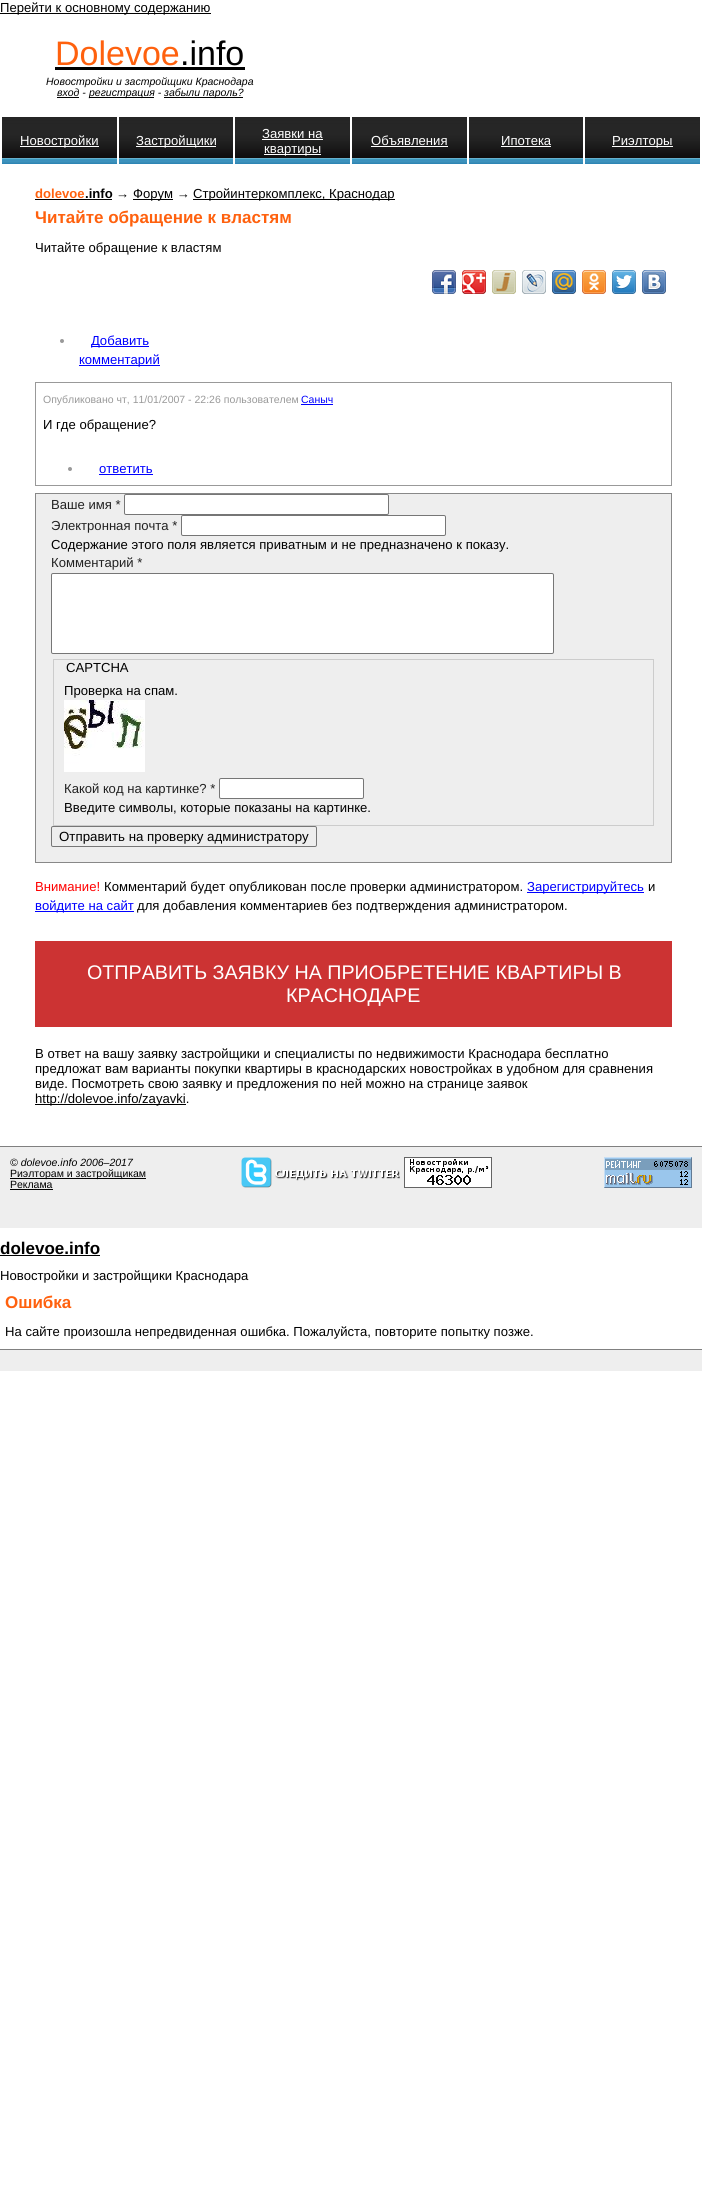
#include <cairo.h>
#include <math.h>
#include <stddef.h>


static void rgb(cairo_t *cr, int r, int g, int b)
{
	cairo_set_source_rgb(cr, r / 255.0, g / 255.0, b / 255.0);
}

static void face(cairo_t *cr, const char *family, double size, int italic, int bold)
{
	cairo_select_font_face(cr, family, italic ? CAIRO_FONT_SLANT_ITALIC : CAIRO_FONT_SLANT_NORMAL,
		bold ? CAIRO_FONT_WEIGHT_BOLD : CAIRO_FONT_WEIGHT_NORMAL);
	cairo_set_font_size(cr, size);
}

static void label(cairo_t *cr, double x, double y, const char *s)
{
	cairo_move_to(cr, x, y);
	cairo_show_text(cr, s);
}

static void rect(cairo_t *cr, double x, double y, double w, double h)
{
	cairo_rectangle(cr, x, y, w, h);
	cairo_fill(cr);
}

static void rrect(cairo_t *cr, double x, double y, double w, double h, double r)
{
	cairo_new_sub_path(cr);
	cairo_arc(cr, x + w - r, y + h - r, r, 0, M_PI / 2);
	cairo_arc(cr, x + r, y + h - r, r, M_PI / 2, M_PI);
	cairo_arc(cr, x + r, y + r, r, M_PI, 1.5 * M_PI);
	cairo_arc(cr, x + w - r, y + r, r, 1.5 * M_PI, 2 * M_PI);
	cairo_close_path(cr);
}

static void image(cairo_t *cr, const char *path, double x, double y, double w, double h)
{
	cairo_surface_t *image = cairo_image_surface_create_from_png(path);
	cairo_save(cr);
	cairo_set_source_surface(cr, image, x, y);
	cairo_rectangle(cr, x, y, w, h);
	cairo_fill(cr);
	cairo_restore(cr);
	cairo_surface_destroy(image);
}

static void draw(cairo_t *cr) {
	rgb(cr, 255, 255, 255);
	cairo_paint(cr);
	rgb(cr, 0, 0, 0);
	rect(cr, 0, 13, 211, 1);
	face(cr, "Liberation Sans", 13.1, 0, 0);
	label(cr, 0, 12, "Перейти к основному содержанию");
	face(cr, "Liberation Sans", 34, 0, 0);
	rgb(cr, 255, 97, 14);
	label(cr, 55, 65, "Dolevoe");
	rgb(cr, 0, 0, 0);
	rect(cr, 55, 67, 190, 3);
	label(cr, 180, 65, ".info");
	face(cr, "Liberation Sans", 10.5, 1, 0);
	label(cr, 46, 85, "Новостройки и застройщики Краснодара");
	label(cr, 57, 96, "вход -");
	rect(cr, 57, 97, 22, 1);
	rect(cr, 89, 97, 65, 1);
	label(cr, 89, 96, "регистрация -");
	rect(cr, 164, 97, 79, 1);
	label(cr, 164, 96, "забыли пароль?");
	image(cr, "image0.png", 2, 117, 115, 47);
	rgb(cr, 255, 255, 255);
	rect(cr, 20, 146, 79, 1);
	face(cr, "Liberation Sans", 13.1, 0, 0);
	label(cr, 20, 145, "Новостройки");
	image(cr, "image1.png", 119, 117, 114, 47);
	rect(cr, 136, 146, 80, 1);
	label(cr, 136, 145, "Застройщики");
	image(cr, "image0.png", 235, 117, 115, 47);
	label(cr, 262, 138, "Заявки на");
	rect(cr, 262, 139, 61, 1);
	rect(cr, 264, 154, 57, 1);
	label(cr, 264, 153, "квартиры");
	image(cr, "image0.png", 352, 117, 115, 47);
	label(cr, 371, 145, "Объявления");
	rect(cr, 371, 146, 77, 1);
	image(cr, "image1.png", 469, 117, 114, 47);
	label(cr, 501, 145, "Ипотека");
	rect(cr, 501, 146, 50, 1);
	image(cr, "image0.png", 585, 117, 115, 47);
	rect(cr, 612, 146, 61, 1);
	label(cr, 612, 145, "Риэлторы");
	face(cr, "Liberation Sans", 13.1, 0, 1);
	rgb(cr, 255, 97, 14);
	label(cr, 35, 198, "dolevoe");
	rgb(cr, 0, 0, 0);
	rect(cr, 35, 199, 77, 1);
	label(cr, 85, 198, ".info");
	face(cr, "Liberation Sans", 13.1, 0, 0);
	label(cr, 116, 198, "→");
	rect(cr, 133, 199, 40, 1);
	label(cr, 133, 198, "Форум →");
	rect(cr, 193, 199, 202, 1);
	label(cr, 193, 198, "Стройинтеркомплекс, Краснодар");
	face(cr, "Liberation Sans", 17, 0, 1);
	rgb(cr, 255, 97, 14);
	label(cr, 35, 223, "Читайте обращение к властям");
	face(cr, "Liberation Sans", 13.1, 0, 0);
	rgb(cr, 0, 0, 0);
	label(cr, 35, 252, "Читайте обращение к властям");
	image(cr, "image2.png", 432, 270, 24, 24);
	image(cr, "image3.png", 462, 270, 24, 24);
	image(cr, "image4.png", 492, 270, 24, 24);
	image(cr, "image5.png", 522, 270, 24, 24);
	image(cr, "image6.png", 552, 270, 24, 24);
	image(cr, "image7.png", 582, 270, 24, 24);
	image(cr, "image8.png", 612, 270, 24, 24);
	image(cr, "image9.png", 642, 270, 24, 24);
	rgb(cr, 153, 153, 153);
	cairo_arc(cr, 62, 341, 2, 0, 2 * M_PI);
	cairo_fill(cr);
	rgb(cr, 0, 0, 255);
	rect(cr, 91, 346, 58, 1);
	label(cr, 91, 345, "Добавить");
	rect(cr, 79, 365, 81, 1);
	label(cr, 79, 364, "комментарий");
	cairo_rectangle(cr, 35.5, 382.5, 636, 103);
	rgb(cr, 153, 153, 153);
	cairo_set_line_width(cr, 1);
	cairo_stroke(cr);
	face(cr, "Liberation Sans", 10.5, 0, 0);
	label(cr, 43, 403, "Опубликовано чт, 11/01/2007 - 22:26 пользователем");
	rgb(cr, 0, 0, 255);
	label(cr, 301, 403, "Саныч");
	rect(cr, 301, 404, 32, 1);
	face(cr, "Liberation Sans", 13.1, 0, 0);
	rgb(cr, 0, 0, 0);
	label(cr, 43, 429, "И где обращение?");
	rgb(cr, 153, 153, 153);
	cairo_new_path(cr);
	cairo_arc(cr, 70, 469, 2, 0, 2 * M_PI);
	cairo_fill(cr);
	rgb(cr, 0, 0, 255);
	label(cr, 99, 473, "ответить");
	rect(cr, 99, 474, 54, 1);
	rgb(cr, 238, 238, 238);
	cairo_rectangle(cr, 35.5, 493.5, 636, 369);
	cairo_fill_preserve(cr);
	rgb(cr, 136, 136, 136);
	cairo_stroke(cr);
	rgb(cr, 34, 34, 34);
	label(cr, 51, 509, "Ваше имя *");
	rgb(cr, 255, 255, 255);
	rrect(cr, 124.5, 494.5, 264, 20, 1.5);
	cairo_fill_preserve(cr);
	rgb(cr, 118, 118, 118);
	cairo_stroke(cr);
	rgb(cr, 34, 34, 34);
	label(cr, 51, 530, "Электронная почта *");
	rgb(cr, 255, 255, 255);
	rrect(cr, 181.5, 515.5, 264, 20, 1.5);
	cairo_fill_preserve(cr);
	rgb(cr, 118, 118, 118);
	cairo_stroke(cr);
	rgb(cr, 0, 0, 0);
	label(cr, 51, 549, "Содержание этого поля является приватным и не предназначено к показу.");
	rgb(cr, 34, 34, 34);
	label(cr, 51, 567, "Комментарий *");
	rgb(cr, 255, 255, 255);
	rrect(cr, 51.5, 573.5, 502, 80, 1.5);
	cairo_fill_preserve(cr);
	rgb(cr, 118, 118, 118);
	cairo_stroke(cr);
	cairo_rectangle(cr, 53.5, 659.5, 600, 166);
	rgb(cr, 204, 204, 204);
	cairo_stroke(cr);
	rgb(cr, 0, 0, 0);
	label(cr, 66, 672, "CAPTCHA");
	label(cr, 64, 695, "Проверка на спам.");
	image(cr, "image10.png", 64, 700, 81, 72);
	rgb(cr, 34, 34, 34);
	label(cr, 64, 793, "Какой код на картинке? *");
	rgb(cr, 255, 255, 255);
	rrect(cr, 219.5, 778.5, 144, 20, 1.5);
	cairo_fill_preserve(cr);
	rgb(cr, 118, 118, 118);
	cairo_stroke(cr);
	rgb(cr, 0, 0, 0);
	label(cr, 64, 812, "Введите символы, которые показаны на картинке.");
	rrect(cr, 51.5, 826.5, 265, 20, 1.5);
	rgb(cr, 118, 118, 118);
	cairo_stroke(cr);
	face(cr, "Liberation Sans", 13.3, 0, 0);
	rgb(cr, 0, 0, 0);
	label(cr, 59, 841, "Отправить на проверку администратору");
	face(cr, "Liberation Sans", 13.1, 0, 0);
	rgb(cr, 255, 0, 0);
	label(cr, 35, 891, "Внимание!");
	rgb(cr, 0, 0, 0);
	label(cr, 104, 891, "Комментарий будет опубликован после проверки администратором.");
	rgb(cr, 0, 0, 255);
	rect(cr, 527, 892, 117, 1);
	label(cr, 527, 891, "Зарегистрируйтесь");
	rgb(cr, 0, 0, 0);
	label(cr, 648, 891, "и");
	rgb(cr, 0, 0, 255);
	rect(cr, 35, 911, 99, 1);
	label(cr, 35, 910, "войдите на сайт");
	rgb(cr, 0, 0, 0);
	label(cr, 137, 910, "для добавления комментариев без подтверждения администратором.");
	rgb(cr, 204, 51, 51);
	rect(cr, 35, 941, 637, 86);
	face(cr, "Liberation Sans", 19.7, 0, 0);
	rgb(cr, 255, 255, 255);
	label(cr, 87, 979, "ОТПРАВИТЬ ЗАЯВКУ НА ПРИОБРЕТЕНИЕ КВАРТИРЫ В");
	label(cr, 286, 1002, "КРАСНОДАРЕ");
	face(cr, "Liberation Sans", 13.1, 0, 0);
	rgb(cr, 0, 0, 0);
	label(cr, 35, 1058, "В ответ на вашу заявку застройщики и специалисты по недвижимости Краснодара бесплатно");
	label(cr, 35, 1073, "предложат вам варианты покупки квартиры в краснодарских новостройках в удобном для сравнения");
	label(cr, 35, 1088, "виде. Посмотреть свою заявку и предложения по ней можно на странице заявок");
	rect(cr, 35, 1104, 151, 1);
	label(cr, 35, 1103, "http://dolevoe.info/zayavki.");
	rgb(cr, 238, 238, 238);
	rect(cr, 0, 1147, 702, 81);
	rgb(cr, 128, 128, 128);
	rect(cr, 0, 1146, 702, 1);
	face(cr, "Liberation Sans", 10.5, 1, 0);
	rgb(cr, 0, 0, 0);
	label(cr, 10, 1166, "© dolevoe.info 2006–2017");
	image(cr, "image11.png", 241, 1157, 159, 31);
	image(cr, "image12.png", 404, 1157, 88, 31);
	image(cr, "image13.png", 604, 1157, 88, 31);
	rect(cr, 10, 1178, 136, 1);
	face(cr, "Liberation Sans", 10.5, 0, 0);
	label(cr, 10, 1177, "Риэлторам и застройщикам");
	label(cr, 10, 1188, "Реклама");
	rect(cr, 10, 1189, 43, 1);
	face(cr, "Liberation Sans", 17, 0, 1);
	label(cr, 0, 1254, "dolevoe.info");
	rect(cr, 0, 1255, 100, 1);
	face(cr, "Liberation Sans", 13.1, 0, 0);
	label(cr, 0, 1280, "Новостройки и застройщики Краснодара");
	face(cr, "Liberation Sans", 17, 0, 1);
	rgb(cr, 255, 97, 14);
	label(cr, 5, 1308, "Ошибка");
	face(cr, "Liberation Sans", 13.1, 0, 0);
	rgb(cr, 0, 0, 0);
	label(cr, 5, 1336, "На сайте произошла непредвиденная ошибка. Пожалуйста, повторите попытку позже.");
	rgb(cr, 238, 238, 238);
	rect(cr, 0, 1350, 702, 21);
	rgb(cr, 128, 128, 128);
	rect(cr, 0, 1349, 702, 1);
}

int main(void) {
	cairo_surface_t *surface = cairo_image_surface_create(CAIRO_FORMAT_RGB24, 702, 2203);
	cairo_t *cr = cairo_create(surface);
	cairo_font_options_t *options = cairo_font_options_create();
	cairo_font_options_set_hint_metrics(options, CAIRO_HINT_METRICS_OFF);
	cairo_font_options_set_hint_style(options, CAIRO_HINT_STYLE_NONE);
	cairo_set_font_options(cr, options);
	cairo_set_miter_limit(cr, 4);
	draw(cr);
	cairo_surface_write_to_png(surface, "render.png");
	cairo_font_options_destroy(options);
	cairo_destroy(cr);
	cairo_surface_destroy(surface);
	return 0;
}
